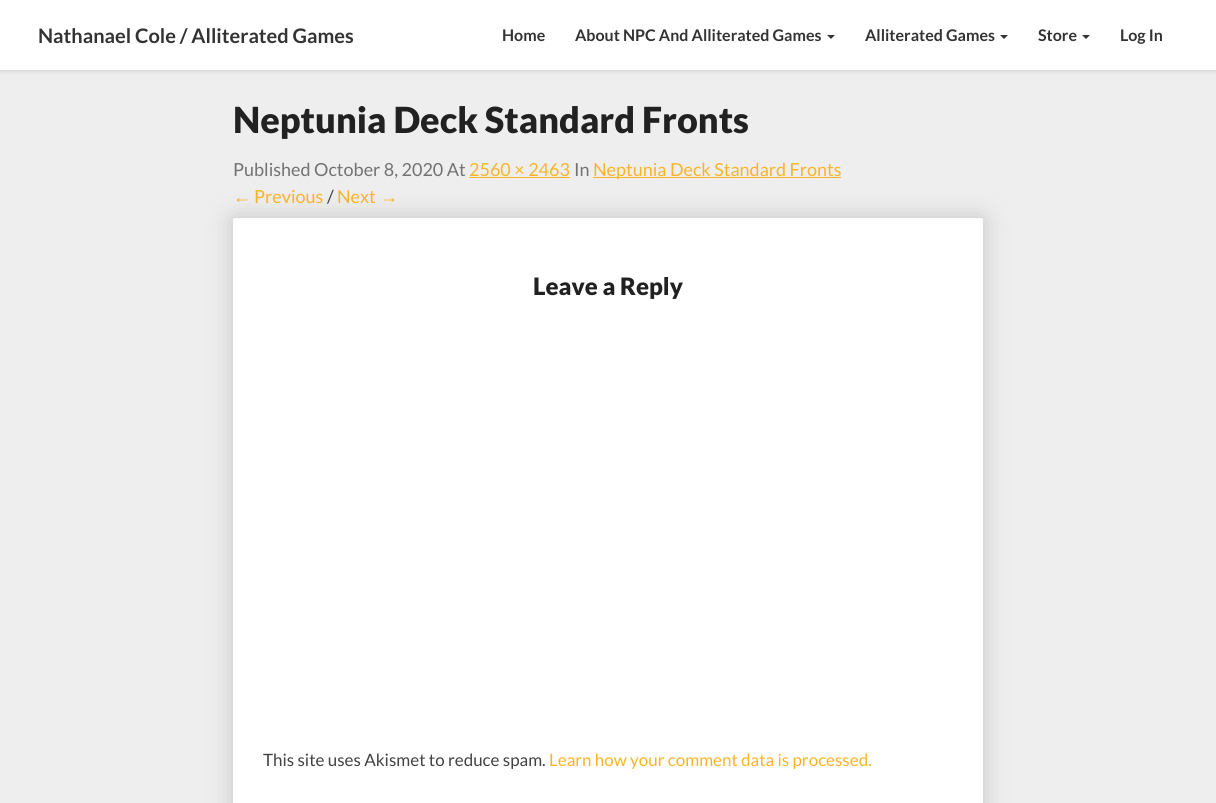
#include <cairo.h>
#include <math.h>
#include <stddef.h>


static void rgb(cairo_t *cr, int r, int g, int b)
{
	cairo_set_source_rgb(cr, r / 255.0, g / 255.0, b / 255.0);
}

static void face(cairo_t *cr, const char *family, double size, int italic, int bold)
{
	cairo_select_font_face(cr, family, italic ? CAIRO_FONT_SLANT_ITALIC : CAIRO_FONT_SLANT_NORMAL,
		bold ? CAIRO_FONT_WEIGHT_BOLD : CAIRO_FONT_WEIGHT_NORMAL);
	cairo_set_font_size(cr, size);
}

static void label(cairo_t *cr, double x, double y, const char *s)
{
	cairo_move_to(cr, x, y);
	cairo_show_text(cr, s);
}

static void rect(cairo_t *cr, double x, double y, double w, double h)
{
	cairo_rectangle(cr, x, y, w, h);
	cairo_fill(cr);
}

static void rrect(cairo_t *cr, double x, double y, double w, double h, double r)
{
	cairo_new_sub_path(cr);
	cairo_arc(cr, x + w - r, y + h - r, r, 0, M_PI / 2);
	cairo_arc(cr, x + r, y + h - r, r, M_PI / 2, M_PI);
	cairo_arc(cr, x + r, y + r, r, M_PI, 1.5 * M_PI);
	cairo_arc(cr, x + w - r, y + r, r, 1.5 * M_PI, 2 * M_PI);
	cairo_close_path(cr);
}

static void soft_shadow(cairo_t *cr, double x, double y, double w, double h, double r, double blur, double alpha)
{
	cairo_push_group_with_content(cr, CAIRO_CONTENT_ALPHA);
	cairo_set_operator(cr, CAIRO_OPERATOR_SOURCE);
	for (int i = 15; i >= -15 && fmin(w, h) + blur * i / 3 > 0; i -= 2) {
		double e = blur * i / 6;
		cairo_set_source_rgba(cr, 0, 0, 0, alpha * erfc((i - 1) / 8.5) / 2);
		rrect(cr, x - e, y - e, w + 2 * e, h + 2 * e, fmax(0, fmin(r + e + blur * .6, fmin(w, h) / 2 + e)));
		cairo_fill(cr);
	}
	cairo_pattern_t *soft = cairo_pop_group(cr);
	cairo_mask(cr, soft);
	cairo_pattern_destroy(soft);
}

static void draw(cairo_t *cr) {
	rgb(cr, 238, 238, 238);
	cairo_paint(cr);
	rgb(cr, 0, 0, 0);
	soft_shadow(cr, 0, 2, 1216, 70, 0, 2, 0.1);
	rgb(cr, 255, 255, 255);
	rect(cr, 0, 0, 1216, 70);
	face(cr, "Lato", 20, 0, 1);
	rgb(cr, 51, 51, 51);
	label(cr, 38, 43, "Nathanael Cole / Alliterated Games");
	face(cr, "Lato", 16, 0, 1);
	label(cr, 502, 41, "Home");
	label(cr, 575, 41, "About NPC And Alliterated Games");
	cairo_new_path(cr);
	cairo_move_to(cr, 827, 35);
	cairo_line_to(cr, 835, 35);
	cairo_line_to(cr, 831, 39);
	cairo_close_path(cr);
	cairo_fill(cr);
	label(cr, 865, 41, "Alliterated Games");
	cairo_new_path(cr);
	cairo_move_to(cr, 1000, 35);
	cairo_line_to(cr, 1008, 35);
	cairo_line_to(cr, 1004, 39);
	cairo_close_path(cr);
	cairo_fill(cr);
	label(cr, 1038, 41, "Store");
	cairo_new_path(cr);
	cairo_move_to(cr, 1082, 35);
	cairo_line_to(cr, 1090, 35);
	cairo_line_to(cr, 1086, 39);
	cairo_close_path(cr);
	cairo_fill(cr);
	label(cr, 1120, 41, "Log In");
	face(cr, "Lato Black", 36, 0, 0);
	rgb(cr, 33, 33, 33);
	label(cr, 233, 133, "Neptunia Deck Standard Fronts");
	face(cr, "Lato", 18, 0, 0);
	rgb(cr, 114, 114, 114);
	label(cr, 233, 176, "Published October 8, 2020 At");
	rgb(cr, 250, 181, 38);
	label(cr, 469, 176, "2560 × 2463");
	rect(cr, 469, 177, 101, 1);
	rgb(cr, 114, 114, 114);
	label(cr, 574, 176, "In");
	rgb(cr, 250, 181, 38);
	rect(cr, 593, 177, 248, 1);
	label(cr, 593, 176, "Neptunia Deck Standard Fronts");
	face(cr, "Liberation Sans", 18, 0, 0);
	label(cr, 233, 203, "←");
	face(cr, "Lato", 18, 0, 0);
	label(cr, 254, 203, "Previous");
	rgb(cr, 66, 66, 66);
	label(cr, 327, 203, "/");
	rgb(cr, 250, 181, 38);
	label(cr, 337, 203, "Next");
	face(cr, "Liberation Sans", 18, 0, 0);
	label(cr, 380, 203, "→");
	rgb(cr, 0, 0, 0);
	soft_shadow(cr, 233, 218, 750, 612, 2, 12.5, 0.17);
	rgb(cr, 255, 255, 255);
	rrect(cr, 233, 218, 750, 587, 2);
	cairo_fill(cr);
	face(cr, "Lato Black", 24, 0, 0);
	rgb(cr, 33, 33, 33);
	label(cr, 533, 295, "Leave a Reply");
	face(cr, "Lato", 17, 0, 0);
	rgb(cr, 66, 66, 66);
	label(cr, 263, 766, "This site uses Akismet to reduce spam.");
	rgb(cr, 250, 181, 38);
	label(cr, 549, 766, "Learn how your comment data is processed.");
}

int main(void) {
	cairo_surface_t *surface = cairo_image_surface_create(CAIRO_FORMAT_RGB24, 1216, 803);
	cairo_t *cr = cairo_create(surface);
	cairo_font_options_t *options = cairo_font_options_create();
	cairo_font_options_set_hint_metrics(options, CAIRO_HINT_METRICS_OFF);
	cairo_font_options_set_hint_style(options, CAIRO_HINT_STYLE_NONE);
	cairo_set_font_options(cr, options);
	cairo_set_miter_limit(cr, 4);
	draw(cr);
	cairo_surface_write_to_png(surface, "render.png");
	cairo_font_options_destroy(options);
	cairo_destroy(cr);
	cairo_surface_destroy(surface);
	return 0;
}
